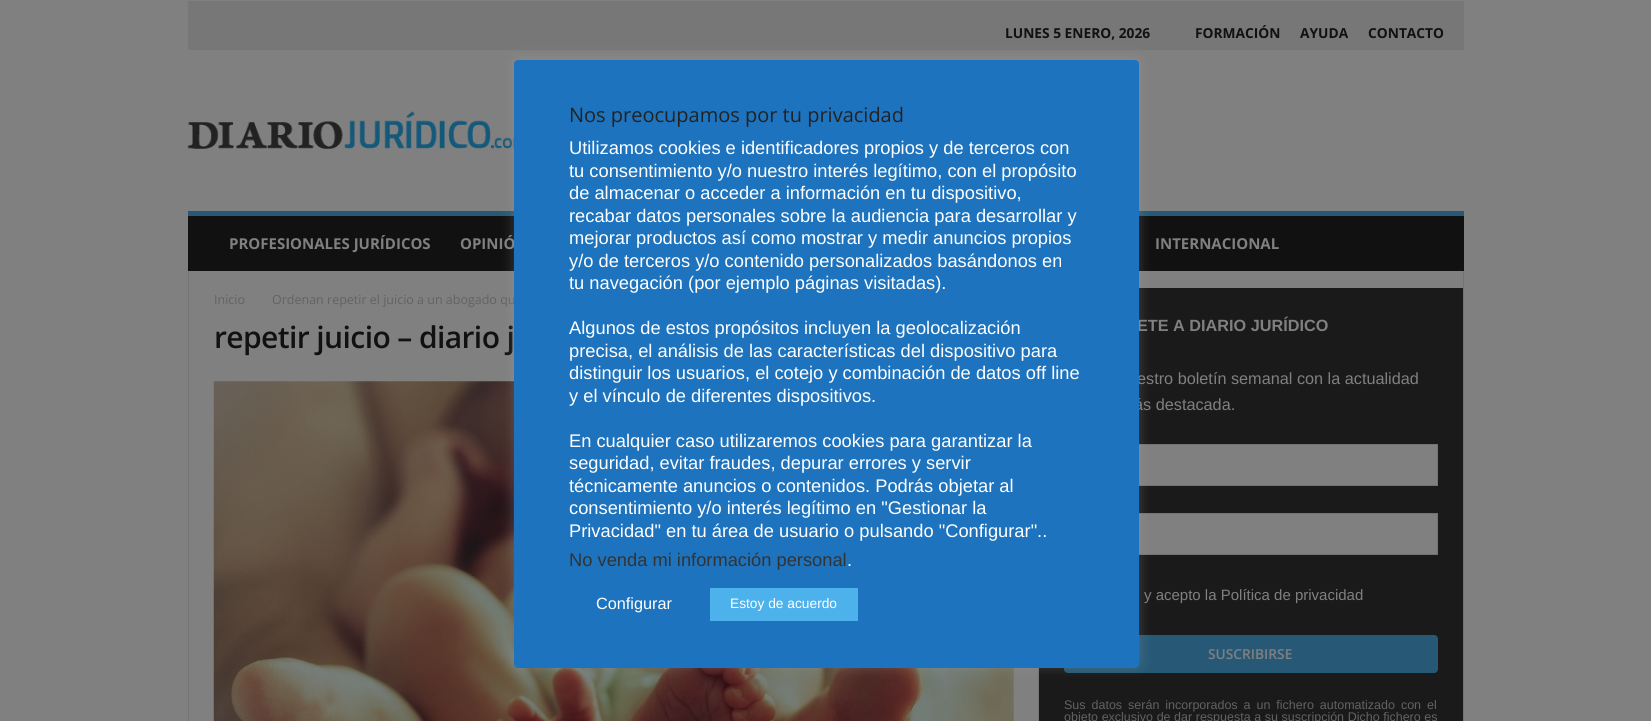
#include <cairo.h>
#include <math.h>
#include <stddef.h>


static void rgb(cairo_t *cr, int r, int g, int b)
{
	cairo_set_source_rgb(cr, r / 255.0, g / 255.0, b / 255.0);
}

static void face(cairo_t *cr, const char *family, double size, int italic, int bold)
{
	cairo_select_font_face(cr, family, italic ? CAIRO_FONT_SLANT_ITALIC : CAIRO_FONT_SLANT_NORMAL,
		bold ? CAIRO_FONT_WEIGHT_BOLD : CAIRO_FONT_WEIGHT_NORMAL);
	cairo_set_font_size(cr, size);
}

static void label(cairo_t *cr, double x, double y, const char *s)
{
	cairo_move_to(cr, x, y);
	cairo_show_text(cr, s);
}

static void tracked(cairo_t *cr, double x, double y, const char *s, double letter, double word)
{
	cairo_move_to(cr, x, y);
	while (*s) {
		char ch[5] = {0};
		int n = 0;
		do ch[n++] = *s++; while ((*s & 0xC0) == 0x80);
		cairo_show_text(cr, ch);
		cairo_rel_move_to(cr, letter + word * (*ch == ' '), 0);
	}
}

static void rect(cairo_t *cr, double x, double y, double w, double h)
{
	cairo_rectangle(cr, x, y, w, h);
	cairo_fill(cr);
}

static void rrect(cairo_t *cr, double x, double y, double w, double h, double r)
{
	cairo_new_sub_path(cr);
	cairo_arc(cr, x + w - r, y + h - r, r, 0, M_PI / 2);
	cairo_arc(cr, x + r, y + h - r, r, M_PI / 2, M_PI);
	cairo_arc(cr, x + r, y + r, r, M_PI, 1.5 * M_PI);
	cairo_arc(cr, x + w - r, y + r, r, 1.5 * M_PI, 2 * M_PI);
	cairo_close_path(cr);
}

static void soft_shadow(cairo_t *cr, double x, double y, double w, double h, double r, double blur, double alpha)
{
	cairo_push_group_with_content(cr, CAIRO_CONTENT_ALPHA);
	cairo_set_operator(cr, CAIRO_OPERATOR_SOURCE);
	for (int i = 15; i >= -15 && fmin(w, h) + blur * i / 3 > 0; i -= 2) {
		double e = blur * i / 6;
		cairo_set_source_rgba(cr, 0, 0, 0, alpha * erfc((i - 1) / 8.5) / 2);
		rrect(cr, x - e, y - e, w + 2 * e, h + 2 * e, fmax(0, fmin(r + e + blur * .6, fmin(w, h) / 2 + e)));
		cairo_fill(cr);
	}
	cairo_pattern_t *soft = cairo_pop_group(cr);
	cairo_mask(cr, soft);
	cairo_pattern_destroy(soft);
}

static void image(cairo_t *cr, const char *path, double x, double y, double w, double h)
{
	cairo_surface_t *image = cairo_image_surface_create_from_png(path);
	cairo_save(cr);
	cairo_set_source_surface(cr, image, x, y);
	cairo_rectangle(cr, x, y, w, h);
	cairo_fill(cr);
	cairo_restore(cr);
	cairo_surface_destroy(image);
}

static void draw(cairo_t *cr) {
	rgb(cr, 128, 128, 128);
	cairo_paint(cr);
	rgb(cr, 119, 119, 119);
	rect(cr, 188, 1, 1276, 49);
	face(cr, "Open Sans", 13.75, 0, 1);
	rgb(cr, 17, 17, 17);
	label(cr, 1005, 38, "LUNES 5 ENERO, 2026");
	label(cr, 1195, 38, "FORMACIÓN");
	label(cr, 1300, 38, "AYUDA");
	label(cr, 1368, 38, "CONTACTO");
	image(cr, "image0.png", 187, 111, 327, 38);
	rect(cr, 188, 216, 1276, 55);
	rgb(cr, 39, 89, 118);
	rect(cr, 188, 211, 1276, 5);
	face(cr, "Open Sans", 15, 0, 1);
	rgb(cr, 128, 128, 128);
	label(cr, 229, 249, "PROFESIONALES JURÍDICOS");
	label(cr, 460, 249, "OPINIÓ");
	label(cr, 1155, 249, "INTERNACIONAL");
	rgb(cr, 115, 115, 115);
	rect(cr, 188, 271, 1, 450);
	face(cr, "Open Sans", 12.5, 0, 0);
	rgb(cr, 98, 98, 98);
	label(cr, 214, 304, "Inicio");
	label(cr, 272, 304, "Ordenan repetir el juicio a un abogado qu");
	face(cr, "Open Sans SemiBold", 30, 0, 0);
	rgb(cr, 17, 17, 17);
	tracked(cr, 214, 348, "repetir juicio – diario j", -0.6, 0);
	image(cr, "image1.png", 213, 381, 801, 340);
	rgb(cr, 115, 115, 115);
	rect(cr, 1038, 668, 1, 53);
	rgb(cr, 26, 26, 26);
	rect(cr, 1039, 288, 424, 433);
	face(cr, "Liberation Sans", 16.25, 0, 1);
	rgb(cr, 128, 128, 128);
	label(cr, 1137, 331, "ETE A DIARIO JURÍDICO");
	face(cr, "Liberation Sans", 16.25, 0, 0);
	label(cr, 1137, 384, "estro boletín semanal con la actualidad");
	label(cr, 1134, 410, "ás destacada.");
	rect(cr, 1139, 445, 298, 40);
	cairo_rectangle(cr, 1064.5, 444.5, 373, 41);
	rgb(cr, 115, 115, 115);
	cairo_set_line_width(cr, 1);
	cairo_stroke(cr);
	rgb(cr, 128, 128, 128);
	rect(cr, 1139, 514, 298, 40);
	cairo_rectangle(cr, 1064.5, 513.5, 373, 41);
	rgb(cr, 115, 115, 115);
	cairo_stroke(cr);
	face(cr, "Liberation Sans", 15, 0, 0);
	rgb(cr, 128, 128, 128);
	label(cr, 1144, 600, "y acepto la Política de privacidad");
	rgb(cr, 39, 89, 118);
	rrect(cr, 1064, 635, 374, 38, 4);
	cairo_fill(cr);
	face(cr, "Open Sans SemiBold", 13.75, 0, 0);
	rgb(cr, 128, 128, 128);
	label(cr, 1208, 659, "SUSCRIBIRSE");
	face(cr, "Liberation Sans", 12.5, 0, 0);
	rgb(cr, 98, 98, 98);
	tracked(cr, 1064, 709, "Sus datos serán incorporados a un fichero automatizado con el", 0, 2.5);
	tracked(cr, 1064, 721, "objeto exclusivo de dar respuesta a su suscripción Dicho fichero es", 0, 0.1);
	rgb(cr, 115, 115, 115);
	rect(cr, 1463, 271, 1, 450);
	rgb(cr, 172, 171, 171);
	soft_shadow(cr, 514, 59, 625, 607, 4, 6, 0.3);
	rgb(cr, 30, 115, 190);
	rrect(cr, 514, 60, 625, 608, 4);
	cairo_fill(cr);
	face(cr, "Open Sans", 20, 0, 0);
	rgb(cr, 34, 34, 34);
	label(cr, 569, 122, "Nos preocupamos por tu privacidad");
	face(cr, "Liberation Sans", 18.3, 0, 0);
	rgb(cr, 255, 255, 255);
	label(cr, 569, 154, "Utilizamos cookies e identificadores propios y de terceros con");
	label(cr, 569, 177, "tu consentimiento y/o nuestro interés legítimo, con el propósito");
	label(cr, 569, 199, "de almacenar o acceder a información en tu dispositivo,");
	label(cr, 569, 222, "recabar datos personales sobre la audiencia para desarrollar y");
	label(cr, 569, 244, "mejorar productos así como mostrar y medir anuncios propios");
	label(cr, 569, 267, "y/o de terceros y/o contenido personalizados basándonos en");
	label(cr, 569, 289, "tu navegación (por ejemplo páginas visitadas).");
	label(cr, 569, 334, "Algunos de estos propósitos incluyen la geolocalización");
	label(cr, 569, 357, "precisa, el análisis de las características del dispositivo para");
	label(cr, 569, 379, "distinguir los usuarios, el cotejo y combinación de datos off line");
	label(cr, 569, 402, "y el vínculo de diferentes dispositivos.");
	label(cr, 569, 447, "En cualquier caso utilizaremos cookies para garantizar la");
	label(cr, 569, 469, "seguridad, evitar fraudes, depurar errores y servir");
	label(cr, 569, 492, "técnicamente anuncios o contenidos. Podrás objetar al");
	label(cr, 569, 514, "consentimiento y/o interés legítimo en \"Gestionar la");
	label(cr, 569, 537, "Privacidad\" en tu área de usuario o pulsando \"Configurar\"..");
	rgb(cr, 51, 51, 51);
	label(cr, 569, 566, "No venda mi información personal");
	rgb(cr, 255, 255, 255);
	label(cr, 847, 566, ".");
	face(cr, "Liberation Sans", 16.25, 0, 0);
	label(cr, 596, 609, "Configurar");
	rgb(cr, 77, 178, 236);
	rect(cr, 710, 588, 148, 33);
	face(cr, "Liberation Sans", 13.75, 0, 0);
	rgb(cr, 255, 255, 255);
	label(cr, 730, 608, "Estoy de acuerdo");
}

int main(void) {
	cairo_surface_t *surface = cairo_image_surface_create(CAIRO_FORMAT_RGB24, 1651, 721);
	cairo_t *cr = cairo_create(surface);
	cairo_font_options_t *options = cairo_font_options_create();
	cairo_font_options_set_hint_metrics(options, CAIRO_HINT_METRICS_OFF);
	cairo_font_options_set_hint_style(options, CAIRO_HINT_STYLE_NONE);
	cairo_set_font_options(cr, options);
	cairo_set_miter_limit(cr, 4);
	draw(cr);
	cairo_surface_write_to_png(surface, "render.png");
	cairo_font_options_destroy(options);
	cairo_destroy(cr);
	cairo_surface_destroy(surface);
	return 0;
}
